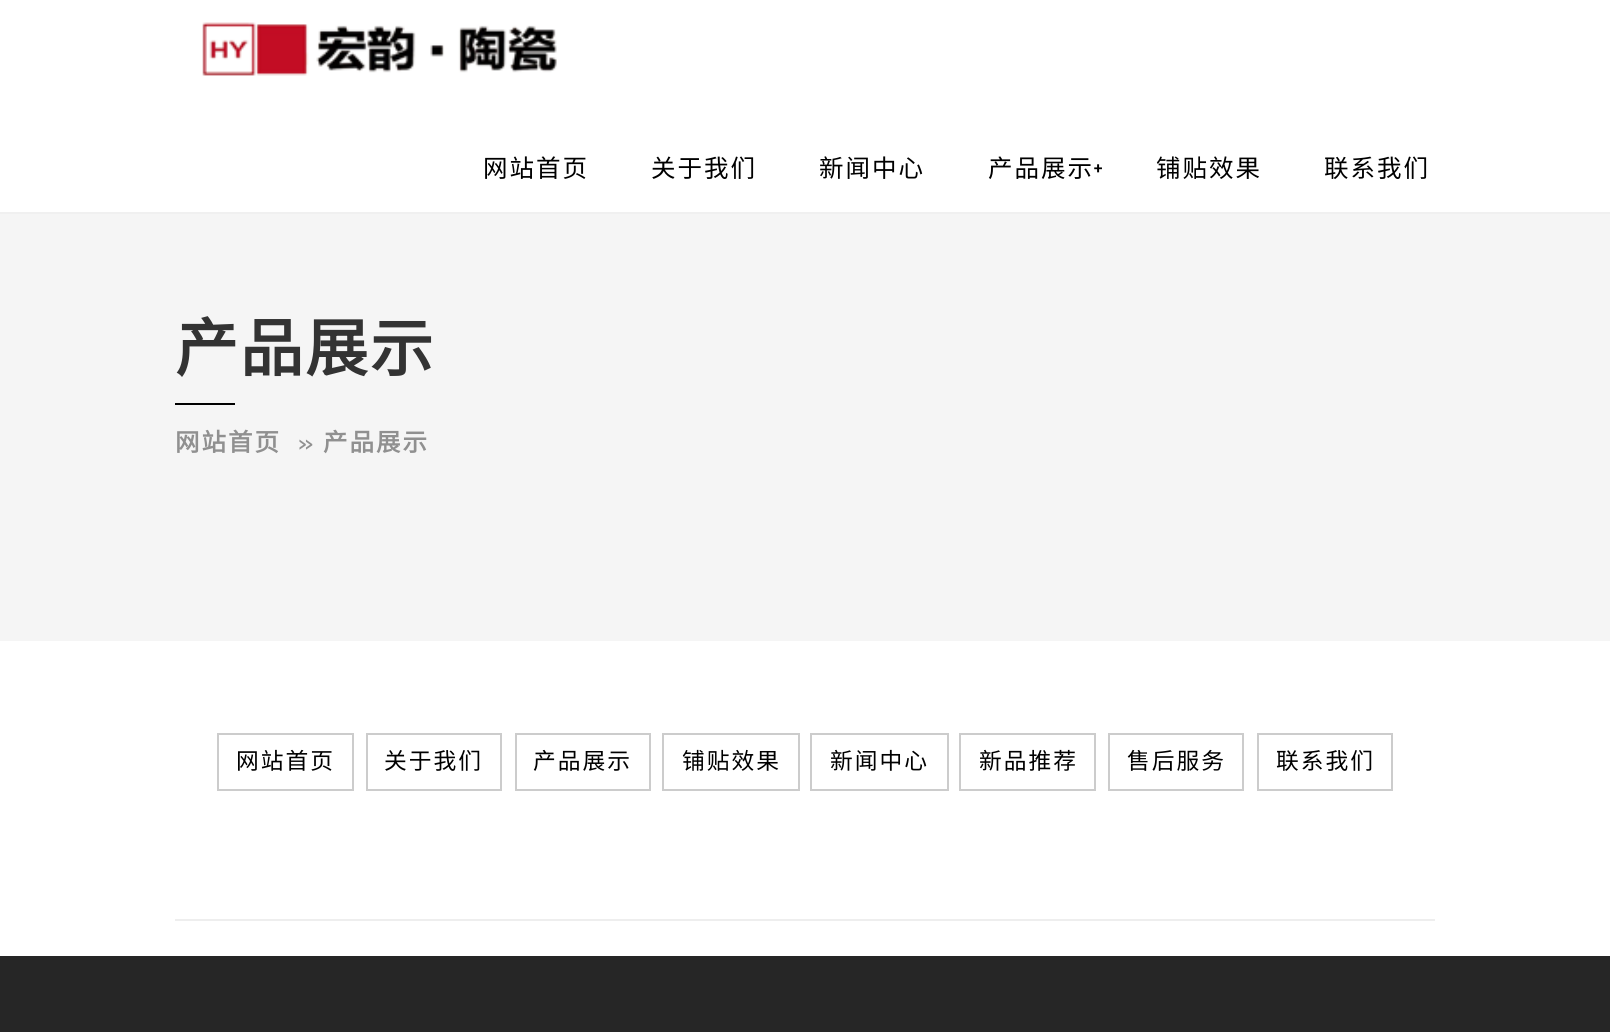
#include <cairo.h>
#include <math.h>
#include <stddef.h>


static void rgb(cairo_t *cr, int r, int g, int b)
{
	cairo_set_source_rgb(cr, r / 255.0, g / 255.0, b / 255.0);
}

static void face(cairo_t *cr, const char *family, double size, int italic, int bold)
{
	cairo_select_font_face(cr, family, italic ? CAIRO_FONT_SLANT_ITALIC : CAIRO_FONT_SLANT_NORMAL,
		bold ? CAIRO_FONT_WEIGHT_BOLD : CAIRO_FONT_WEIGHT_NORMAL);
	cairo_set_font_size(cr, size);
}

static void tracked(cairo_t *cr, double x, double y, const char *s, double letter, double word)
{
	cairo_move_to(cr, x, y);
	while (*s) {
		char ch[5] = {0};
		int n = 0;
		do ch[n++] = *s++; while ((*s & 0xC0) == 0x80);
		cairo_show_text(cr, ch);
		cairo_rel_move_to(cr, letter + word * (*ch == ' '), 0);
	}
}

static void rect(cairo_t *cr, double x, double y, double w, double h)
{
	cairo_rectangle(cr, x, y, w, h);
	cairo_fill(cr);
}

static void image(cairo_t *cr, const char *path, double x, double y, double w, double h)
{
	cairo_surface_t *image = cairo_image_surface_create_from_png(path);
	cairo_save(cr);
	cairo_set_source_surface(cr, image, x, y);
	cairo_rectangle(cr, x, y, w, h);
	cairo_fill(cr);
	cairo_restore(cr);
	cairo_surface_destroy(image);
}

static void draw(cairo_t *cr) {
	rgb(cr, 255, 255, 255);
	cairo_paint(cr);
	rgb(cr, 240, 240, 240);
	rect(cr, 0, 212, 1610, 2);
	image(cr, "image0.png", 202, 22, 355, 54);
	face(cr, "Noto Sans CJK SC", 24.5, 0, 0);
	rgb(cr, 0, 0, 0);
	tracked(cr, 483, 177, "网站首页", 2, 0);
	tracked(cr, 651, 177, "关于我们", 2, 0);
	tracked(cr, 819, 177, "新闻中心", 2, 0);
	tracked(cr, 988, 177, "产品展示", 2, 0);
	face(cr, "Raleway Medium", 24.5, 0, 0);
	tracked(cr, 1093, 177, "+", 2, 0);
	face(cr, "Noto Sans CJK SC", 24.5, 0, 0);
	tracked(cr, 1156, 177, "铺贴效果", 2, 0);
	tracked(cr, 1324, 177, "联系我们", 2, 0);
	rgb(cr, 245, 245, 245);
	rect(cr, 0, 214, 1610, 427);
	face(cr, "Noto Sans CJK SC", 63, 0, 1);
	rgb(cr, 51, 51, 51);
	tracked(cr, 175, 371, "产品展示", 2, 0);
	rgb(cr, 0, 0, 0);
	rect(cr, 175, 403, 60, 2);
	face(cr, "Noto Sans CJK SC", 24.5, 0, 1);
	rgb(cr, 144, 144, 144);
	tracked(cr, 175, 451, "网站首页", 2, 0);
	face(cr, "Raleway SemiBold", 24.5, 0, 0);
	tracked(cr, 298, 451, "»", 2, 0);
	face(cr, "Noto Sans CJK SC", 24.5, 0, 1);
	tracked(cr, 323, 451, "产品展示", 2, 0);
	cairo_rectangle(cr, 218, 734, 135, 56);
	rgb(cr, 204, 204, 204);
	cairo_stroke(cr);
	face(cr, "Noto Sans CJK SC", 22.75, 0, 0);
	rgb(cr, 0, 0, 0);
	tracked(cr, 236, 769, "网站首页", 2, 0);
	cairo_rectangle(cr, 367, 734, 134, 56);
	rgb(cr, 204, 204, 204);
	cairo_stroke(cr);
	rgb(cr, 0, 0, 0);
	tracked(cr, 384, 769, "关于我们", 2, 0);
	cairo_rectangle(cr, 516, 734, 134, 56);
	rgb(cr, 204, 204, 204);
	cairo_stroke(cr);
	rgb(cr, 0, 0, 0);
	tracked(cr, 533, 769, "产品展示", 2, 0);
	cairo_rectangle(cr, 663, 734, 136, 56);
	rgb(cr, 204, 204, 204);
	cairo_stroke(cr);
	rgb(cr, 0, 0, 0);
	tracked(cr, 682, 769, "铺贴效果", 2, 0);
	cairo_rectangle(cr, 811, 734, 137, 56);
	rgb(cr, 204, 204, 204);
	cairo_stroke(cr);
	rgb(cr, 0, 0, 0);
	tracked(cr, 830, 769, "新闻中心", 2, 0);
	cairo_rectangle(cr, 960, 734, 135, 56);
	rgb(cr, 204, 204, 204);
	cairo_stroke(cr);
	rgb(cr, 0, 0, 0);
	tracked(cr, 979, 769, "新品推荐", 2, 0);
	cairo_rectangle(cr, 1109, 734, 134, 56);
	rgb(cr, 204, 204, 204);
	cairo_stroke(cr);
	rgb(cr, 0, 0, 0);
	tracked(cr, 1127, 769, "售后服务", 2, 0);
	cairo_rectangle(cr, 1258, 734, 134, 56);
	rgb(cr, 204, 204, 204);
	cairo_stroke(cr);
	rgb(cr, 0, 0, 0);
	tracked(cr, 1276, 769, "联系我们", 2, 0);
	rgb(cr, 238, 238, 238);
	rect(cr, 175, 919, 1260, 2);
	rgb(cr, 38, 38, 38);
	rect(cr, 0, 956, 1610, 76);
}

int main(void) {
	cairo_surface_t *surface = cairo_image_surface_create(CAIRO_FORMAT_RGB24, 1610, 1032);
	cairo_t *cr = cairo_create(surface);
	cairo_font_options_t *options = cairo_font_options_create();
	cairo_font_options_set_hint_metrics(options, CAIRO_HINT_METRICS_OFF);
	cairo_font_options_set_hint_style(options, CAIRO_HINT_STYLE_NONE);
	cairo_set_font_options(cr, options);
	cairo_set_miter_limit(cr, 4);
	draw(cr);
	cairo_surface_write_to_png(surface, "render.png");
	cairo_font_options_destroy(options);
	cairo_destroy(cr);
	cairo_surface_destroy(surface);
	return 0;
}
